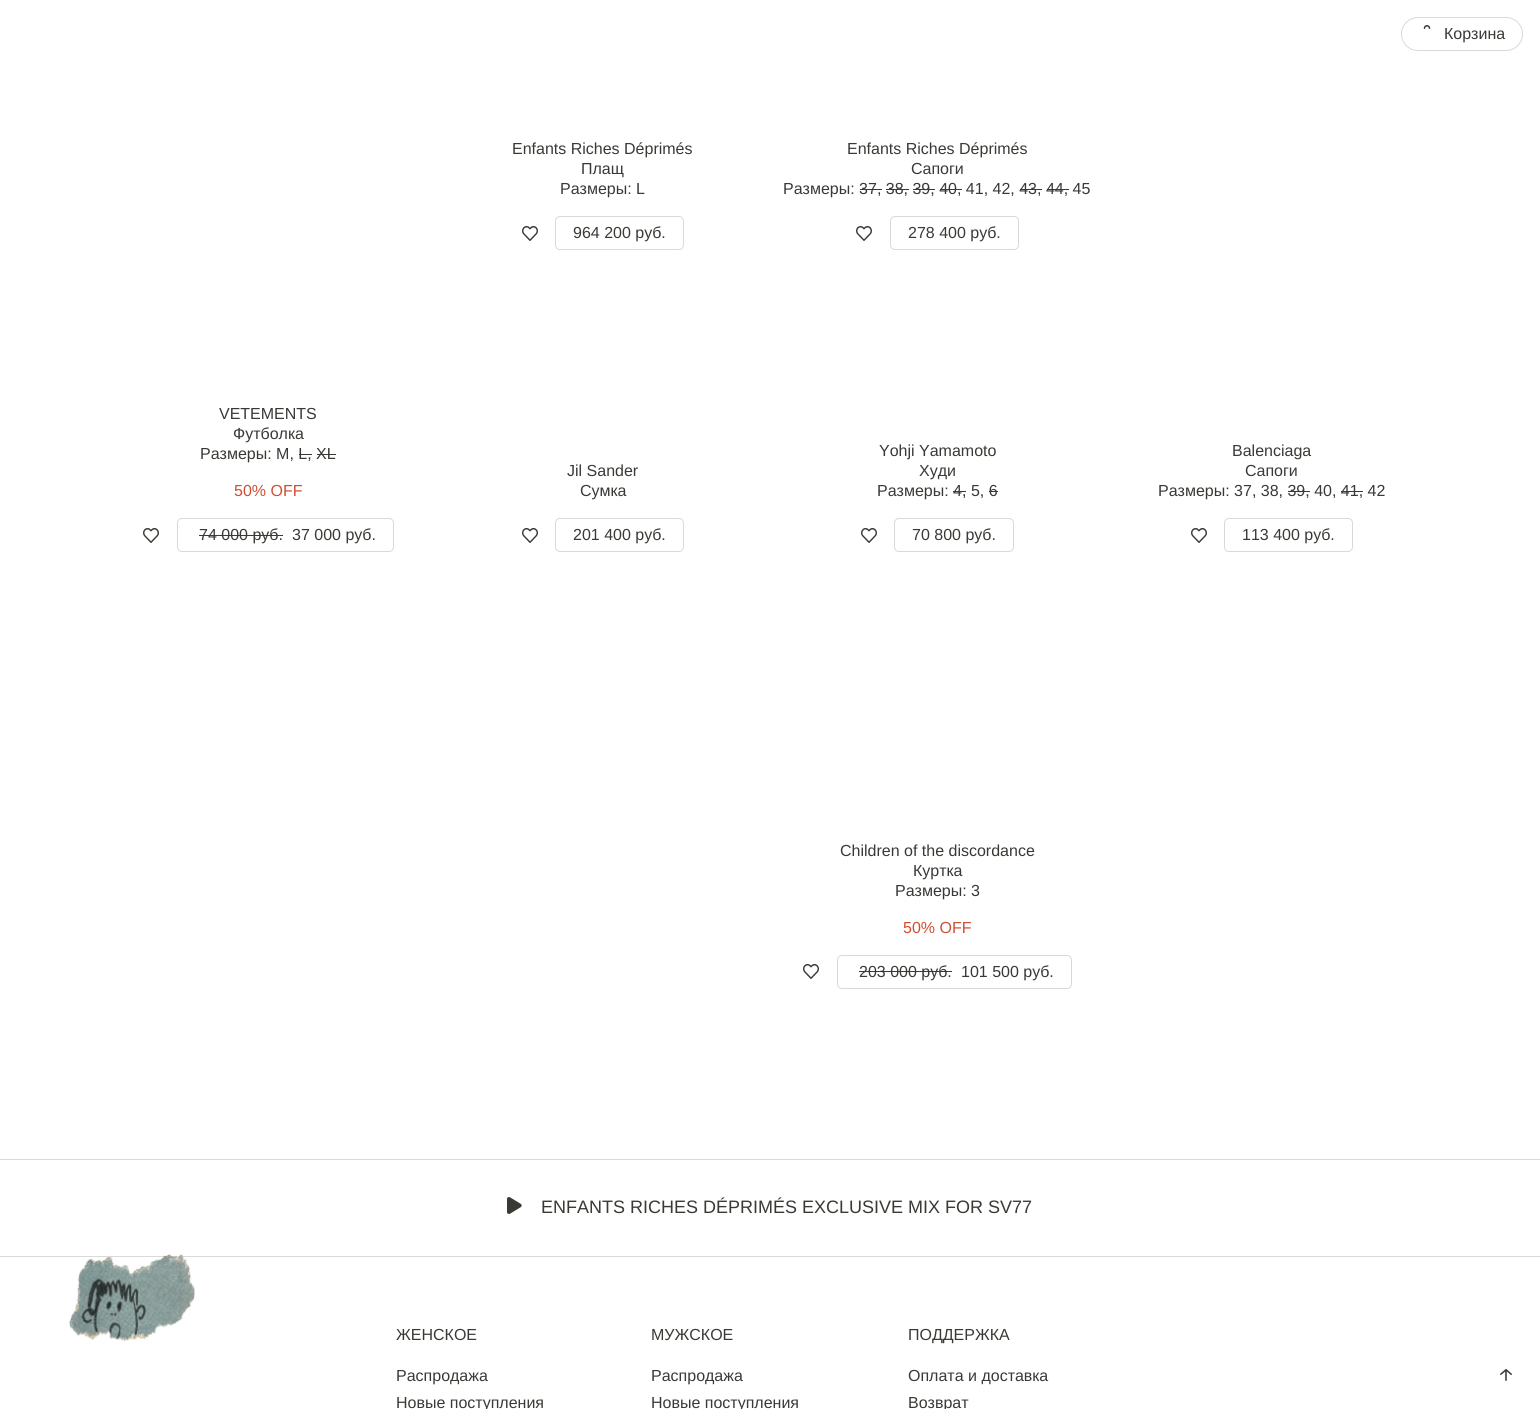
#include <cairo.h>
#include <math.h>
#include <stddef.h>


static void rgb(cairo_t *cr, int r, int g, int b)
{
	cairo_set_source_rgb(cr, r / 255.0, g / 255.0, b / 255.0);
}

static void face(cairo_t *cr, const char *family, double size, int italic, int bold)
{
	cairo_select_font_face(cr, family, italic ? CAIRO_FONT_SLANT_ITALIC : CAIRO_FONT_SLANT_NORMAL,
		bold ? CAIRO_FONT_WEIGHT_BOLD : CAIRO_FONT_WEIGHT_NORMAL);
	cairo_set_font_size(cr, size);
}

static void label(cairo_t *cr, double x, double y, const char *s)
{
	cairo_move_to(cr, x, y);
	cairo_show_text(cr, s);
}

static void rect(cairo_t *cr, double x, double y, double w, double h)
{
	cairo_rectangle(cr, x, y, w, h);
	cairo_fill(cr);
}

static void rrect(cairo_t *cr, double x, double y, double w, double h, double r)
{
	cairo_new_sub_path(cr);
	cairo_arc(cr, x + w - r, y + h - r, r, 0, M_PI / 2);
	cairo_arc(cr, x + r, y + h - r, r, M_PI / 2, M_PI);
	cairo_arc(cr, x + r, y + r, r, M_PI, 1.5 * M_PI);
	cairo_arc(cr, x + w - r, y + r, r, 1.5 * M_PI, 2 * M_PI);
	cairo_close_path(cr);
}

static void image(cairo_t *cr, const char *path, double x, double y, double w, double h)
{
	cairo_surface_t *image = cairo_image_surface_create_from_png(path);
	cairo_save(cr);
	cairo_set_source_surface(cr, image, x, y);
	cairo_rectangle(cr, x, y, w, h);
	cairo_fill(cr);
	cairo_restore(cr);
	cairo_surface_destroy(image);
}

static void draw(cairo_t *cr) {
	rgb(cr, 255, 255, 255);
	cairo_paint(cr);
	rrect(cr, 1401.5, 17.5, 121, 33, 16.5);
	rgb(cr, 217, 217, 217);
	cairo_set_line_width(cr, 1);
	cairo_stroke(cr);
	image(cr, "image0.png", 1423, 25, 8, 4);
	face(cr, "Liberation Sans", 16, 0, 0);
	rgb(cr, 57, 57, 53);
	label(cr, 1444, 39, "Корзина");
	label(cr, 512, 154, "Enfants Riches Déprimés");
	label(cr, 581, 174, "Плащ");
	label(cr, 560, 194, "Размеры: L");
	image(cr, "image1.png", 522, 226, 16, 15);
	rrect(cr, 555.5, 216.5, 128, 33, 4.5);
	rgb(cr, 217, 217, 217);
	cairo_stroke(cr);
	rgb(cr, 57, 57, 53);
	label(cr, 573, 238, "964 200 руб.");
	label(cr, 847, 154, "Enfants Riches Déprimés");
	label(cr, 911, 174, "Сапоги");
	label(cr, 783, 194, "Размеры: 37, 38, 39, 40, 41, 42, 43, 44, 45");
	rect(cr, 860, 189, 22, 1);
	rect(cr, 886, 189, 23, 1);
	rect(cr, 913, 189, 22, 1);
	rect(cr, 940, 189, 22, 1);
	rect(cr, 1020, 189, 22, 1);
	rect(cr, 1047, 189, 22, 1);
	image(cr, "image1.png", 856, 226, 16, 15);
	rrect(cr, 890.5, 216.5, 128, 33, 4.5);
	rgb(cr, 217, 217, 217);
	cairo_stroke(cr);
	rgb(cr, 57, 57, 53);
	label(cr, 908, 238, "278 400 руб.");
	label(cr, 219, 419, "VETEMENTS");
	label(cr, 233, 439, "Футболка");
	label(cr, 200, 459, "Размеры: M, L, XL");
	rect(cr, 299, 454, 13, 1);
	rect(cr, 317, 454, 19, 1);
	rgb(cr, 207, 79, 50);
	label(cr, 234, 496, "50% OFF");
	image(cr, "image1.png", 143, 528, 16, 15);
	rrect(cr, 177.5, 518.5, 216, 33, 4.5);
	rgb(cr, 217, 217, 217);
	cairo_stroke(cr);
	rgb(cr, 57, 57, 53);
	label(cr, 199, 540, "74 000 руб.");
	rect(cr, 199, 535, 84, 1);
	label(cr, 292, 540, "37 000 руб.");
	label(cr, 567, 476, "Jil Sander");
	label(cr, 580, 496, "Сумка");
	image(cr, "image1.png", 522, 528, 16, 15);
	rrect(cr, 555.5, 518.5, 128, 33, 4.5);
	rgb(cr, 217, 217, 217);
	cairo_stroke(cr);
	rgb(cr, 57, 57, 53);
	label(cr, 573, 540, "201 400 руб.");
	label(cr, 879, 456, "Yohji Yamamoto");
	label(cr, 919, 476, "Худи");
	label(cr, 877, 496, "Размеры: 4, 5, 6");
	rect(cr, 953, 491, 13, 1);
	rect(cr, 989, 491, 9, 1);
	image(cr, "image1.png", 861, 528, 16, 15);
	rrect(cr, 894.5, 518.5, 119, 33, 4.5);
	rgb(cr, 217, 217, 217);
	cairo_stroke(cr);
	rgb(cr, 57, 57, 53);
	label(cr, 912, 540, "70 800 руб.");
	label(cr, 1232, 456, "Balenciaga");
	label(cr, 1245, 476, "Сапоги");
	label(cr, 1158, 496, "Размеры: 37, 38, 39, 40, 41, 42");
	rect(cr, 1288, 491, 22, 1);
	rect(cr, 1341, 491, 22, 1);
	image(cr, "image1.png", 1191, 528, 16, 15);
	rrect(cr, 1224.5, 518.5, 128, 33, 4.5);
	rgb(cr, 217, 217, 217);
	cairo_stroke(cr);
	rgb(cr, 57, 57, 53);
	label(cr, 1242, 540, "113 400 руб.");
	label(cr, 840, 856, "Children of the discordance");
	label(cr, 913, 876, "Куртка");
	label(cr, 895, 896, "Размеры: 3");
	rgb(cr, 207, 79, 50);
	label(cr, 903, 933, "50% OFF");
	image(cr, "image1.png", 803, 964, 16, 15);
	rrect(cr, 837.5, 955.5, 234, 33, 4.5);
	rgb(cr, 217, 217, 217);
	cairo_stroke(cr);
	rgb(cr, 57, 57, 53);
	label(cr, 859, 977, "203 000 руб.");
	rect(cr, 859, 971, 93, 1);
	label(cr, 961, 977, "101 500 руб.");
	rgb(cr, 217, 217, 217);
	rect(cr, 0, 1256, 1540, 1);
	image(cr, "image2.png", 69, 1254, 126, 87);
	rect(cr, 0, 1159, 1540, 1);
	image(cr, "image3.png", 507, 1197, 15, 17);
	face(cr, "Liberation Sans", 18, 0, 0);
	rgb(cr, 57, 57, 53);
	label(cr, 541, 1213, "ENFANTS RICHES DÉPRIMÉS EXCLUSIVE MIX FOR SV77");
	face(cr, "Liberation Sans", 16, 0, 0);
	label(cr, 396, 1340, "ЖЕНСКОЕ");
	label(cr, 396, 1381, "Распродажа");
	label(cr, 396, 1408, "Новые поступления");
	label(cr, 651, 1340, "МУЖСКОЕ");
	label(cr, 651, 1381, "Распродажа");
	label(cr, 651, 1408, "Новые поступления");
	label(cr, 908, 1340, "ПОДДЕРЖКА");
	label(cr, 908, 1381, "Оплата и доставка");
	label(cr, 908, 1408, "Возврат");
	image(cr, "image4.png", 1500, 1369, 12, 12);
}

int main(void) {
	cairo_surface_t *surface = cairo_image_surface_create(CAIRO_FORMAT_RGB24, 1540, 1409);
	cairo_t *cr = cairo_create(surface);
	cairo_font_options_t *options = cairo_font_options_create();
	cairo_font_options_set_hint_metrics(options, CAIRO_HINT_METRICS_OFF);
	cairo_font_options_set_hint_style(options, CAIRO_HINT_STYLE_NONE);
	cairo_set_font_options(cr, options);
	cairo_set_miter_limit(cr, 4);
	draw(cr);
	cairo_surface_write_to_png(surface, "render.png");
	cairo_font_options_destroy(options);
	cairo_destroy(cr);
	cairo_surface_destroy(surface);
	return 0;
}
